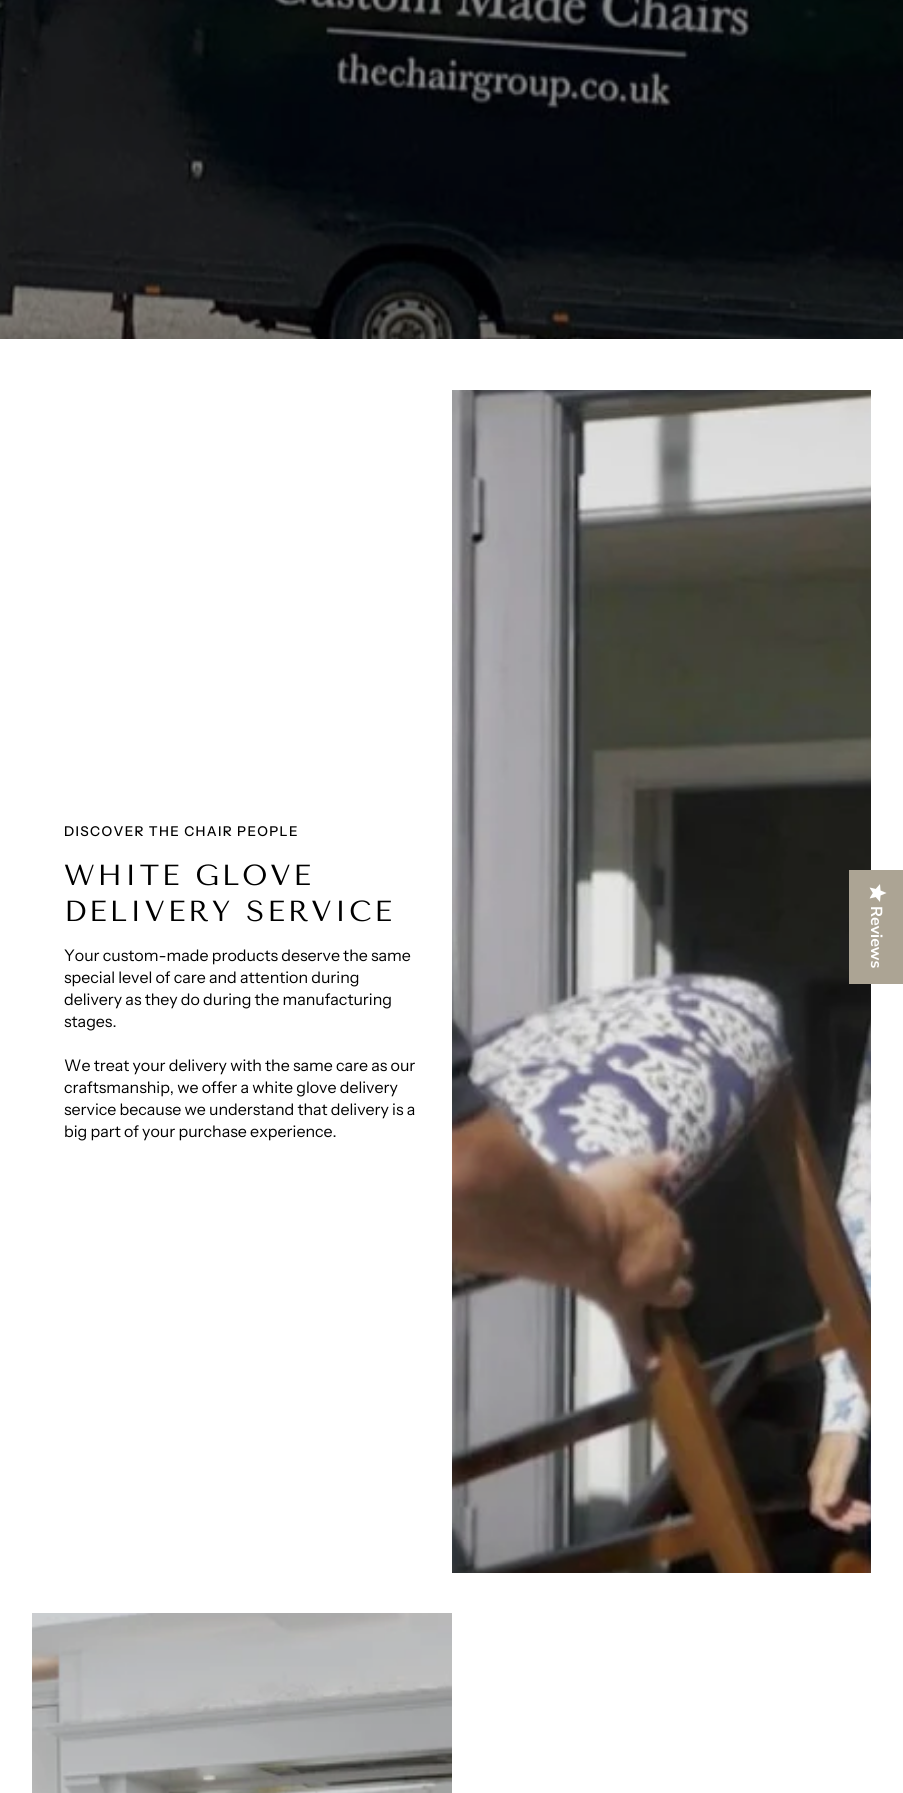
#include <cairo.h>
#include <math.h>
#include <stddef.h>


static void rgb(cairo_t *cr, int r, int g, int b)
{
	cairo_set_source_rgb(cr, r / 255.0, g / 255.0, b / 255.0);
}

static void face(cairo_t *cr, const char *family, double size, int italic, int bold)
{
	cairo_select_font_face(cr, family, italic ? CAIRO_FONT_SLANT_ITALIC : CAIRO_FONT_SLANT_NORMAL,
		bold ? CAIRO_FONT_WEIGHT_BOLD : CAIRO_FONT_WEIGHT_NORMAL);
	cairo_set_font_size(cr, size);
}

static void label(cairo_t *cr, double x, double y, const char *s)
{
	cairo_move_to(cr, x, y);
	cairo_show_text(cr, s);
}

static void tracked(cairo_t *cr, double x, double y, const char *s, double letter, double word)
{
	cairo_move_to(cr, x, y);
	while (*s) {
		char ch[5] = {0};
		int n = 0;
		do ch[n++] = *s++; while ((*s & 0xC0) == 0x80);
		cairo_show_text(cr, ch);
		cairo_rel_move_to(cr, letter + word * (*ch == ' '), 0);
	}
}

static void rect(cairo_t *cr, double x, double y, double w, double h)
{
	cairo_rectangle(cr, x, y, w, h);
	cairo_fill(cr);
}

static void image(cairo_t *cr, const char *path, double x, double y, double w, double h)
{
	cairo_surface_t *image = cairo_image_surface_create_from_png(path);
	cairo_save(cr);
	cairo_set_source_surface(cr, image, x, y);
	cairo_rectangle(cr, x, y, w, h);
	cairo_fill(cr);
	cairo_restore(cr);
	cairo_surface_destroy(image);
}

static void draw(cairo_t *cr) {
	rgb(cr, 255, 255, 255);
	cairo_paint(cr);
	image(cr, "image0.png", 0, 0, 903, 339);
	face(cr, "Instrument Sans Medium", 13.5, 0, 0);
	rgb(cr, 0, 0, 0);
	tracked(cr, 64, 836, "DISCOVER THE CHAIR PEOPLE", 1.35, 0);
	face(cr, "Tenor Sans", 29, 0, 0);
	tracked(cr, 64, 885, "WHITE GLOVE", 2.9, 0);
	tracked(cr, 64, 921, "DELIVERY SERVICE", 2.9, 0);
	face(cr, "Instrument Sans", 16, 0, 0);
	label(cr, 64, 961, "Your custom-made products deserve the same");
	label(cr, 64, 983, "special level of care and attention during");
	label(cr, 64, 1005, "delivery as they do during the manufacturing");
	label(cr, 64, 1027, "stages.");
	label(cr, 64, 1071, "We treat your delivery with the same care as our");
	label(cr, 64, 1093, "craftsmanship, we offer a white glove delivery");
	label(cr, 64, 1115, "service because we understand that delivery is a");
	label(cr, 64, 1137, "big part of your purchase experience.");
	image(cr, "image1.png", 452, 390, 419, 1183);
	image(cr, "image2.png", 32, 1613, 420, 180);
	rgb(cr, 172, 164, 148);
	rect(cr, 849, 870, 54, 114);
	image(cr, "image3.png", 869, 884, 18, 18);
	face(cr, "Nunito Sans ExtraLight", 16, 0, 0);
	rgb(cr, 255, 255, 255);
	cairo_save(cr);
	cairo_translate(cr, 871, 906);
	cairo_rotate(cr, 90 * M_PI / 180);
	label(cr, 0, 0, "Reviews");
	cairo_restore(cr);
}

int main(void) {
	cairo_surface_t *surface = cairo_image_surface_create(CAIRO_FORMAT_RGB24, 903, 1793);
	cairo_t *cr = cairo_create(surface);
	cairo_font_options_t *options = cairo_font_options_create();
	cairo_font_options_set_hint_metrics(options, CAIRO_HINT_METRICS_OFF);
	cairo_font_options_set_hint_style(options, CAIRO_HINT_STYLE_NONE);
	cairo_set_font_options(cr, options);
	cairo_set_miter_limit(cr, 4);
	draw(cr);
	cairo_surface_write_to_png(surface, "render.png");
	cairo_font_options_destroy(options);
	cairo_destroy(cr);
	cairo_surface_destroy(surface);
	return 0;
}
